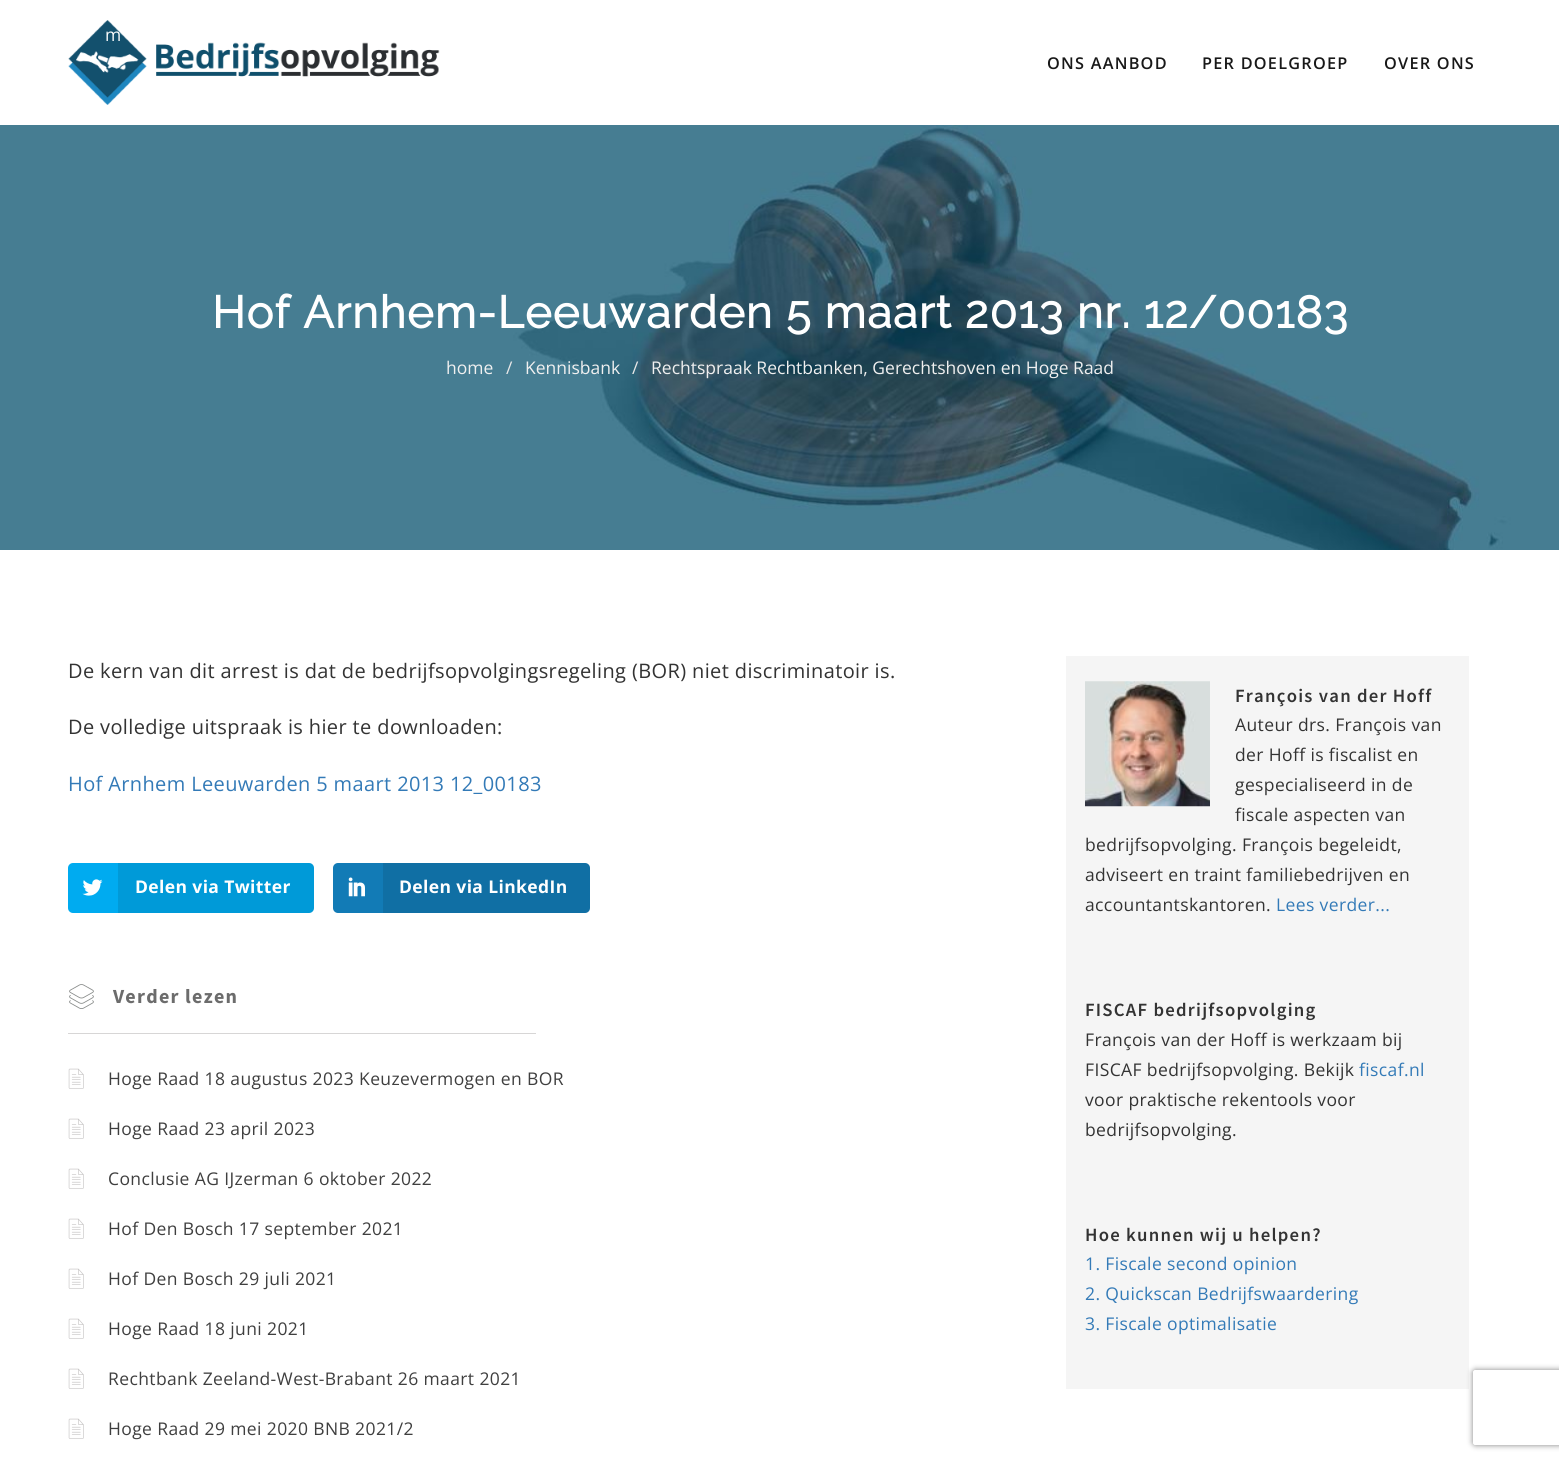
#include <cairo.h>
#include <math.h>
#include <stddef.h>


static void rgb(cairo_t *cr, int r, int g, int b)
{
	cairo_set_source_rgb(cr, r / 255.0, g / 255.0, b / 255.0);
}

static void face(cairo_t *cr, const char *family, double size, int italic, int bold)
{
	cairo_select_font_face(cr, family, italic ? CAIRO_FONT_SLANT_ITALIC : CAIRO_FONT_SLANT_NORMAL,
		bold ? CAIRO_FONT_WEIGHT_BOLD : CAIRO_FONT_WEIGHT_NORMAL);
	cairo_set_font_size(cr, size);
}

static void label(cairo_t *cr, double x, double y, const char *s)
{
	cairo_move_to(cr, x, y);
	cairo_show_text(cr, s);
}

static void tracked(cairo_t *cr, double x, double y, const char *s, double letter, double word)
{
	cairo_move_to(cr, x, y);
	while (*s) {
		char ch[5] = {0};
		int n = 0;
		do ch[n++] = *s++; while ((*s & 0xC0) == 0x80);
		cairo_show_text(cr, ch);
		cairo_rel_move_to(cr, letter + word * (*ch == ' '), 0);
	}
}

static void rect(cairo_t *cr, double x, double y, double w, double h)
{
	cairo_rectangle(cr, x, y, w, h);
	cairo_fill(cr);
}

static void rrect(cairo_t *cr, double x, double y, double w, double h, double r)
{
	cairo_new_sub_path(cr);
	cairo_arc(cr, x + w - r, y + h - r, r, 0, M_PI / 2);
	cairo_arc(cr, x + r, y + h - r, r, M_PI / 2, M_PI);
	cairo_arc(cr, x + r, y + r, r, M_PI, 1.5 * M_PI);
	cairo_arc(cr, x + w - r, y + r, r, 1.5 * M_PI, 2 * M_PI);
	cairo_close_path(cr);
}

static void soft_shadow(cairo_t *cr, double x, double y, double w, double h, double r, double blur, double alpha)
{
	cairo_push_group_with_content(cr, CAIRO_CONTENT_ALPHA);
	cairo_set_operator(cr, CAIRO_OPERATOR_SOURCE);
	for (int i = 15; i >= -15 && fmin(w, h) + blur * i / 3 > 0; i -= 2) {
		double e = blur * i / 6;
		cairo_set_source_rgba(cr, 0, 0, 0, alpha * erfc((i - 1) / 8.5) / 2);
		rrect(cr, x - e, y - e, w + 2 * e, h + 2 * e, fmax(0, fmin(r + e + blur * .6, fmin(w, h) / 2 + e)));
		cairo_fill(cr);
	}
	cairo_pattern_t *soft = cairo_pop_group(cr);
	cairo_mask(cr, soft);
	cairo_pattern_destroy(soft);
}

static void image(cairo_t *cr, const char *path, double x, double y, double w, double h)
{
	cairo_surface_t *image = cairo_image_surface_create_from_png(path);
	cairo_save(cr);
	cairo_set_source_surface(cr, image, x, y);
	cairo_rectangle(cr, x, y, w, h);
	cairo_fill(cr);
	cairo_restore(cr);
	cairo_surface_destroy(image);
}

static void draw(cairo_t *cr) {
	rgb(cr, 255, 255, 255);
	cairo_paint(cr);
	image(cr, "image0.png", 68, 20, 372, 85);
	face(cr, "Open Sans", 17.5, 0, 0);
	rgb(cr, 249, 251, 251);
	tracked(cr, 105, 41, "m", 0.38, 0);
	face(cr, "Open Sans SemiBold", 16.25, 0, 0);
	rgb(cr, 24, 24, 24);
	tracked(cr, 1047, 69, "ONS AANBOD", 1.25, 0);
	tracked(cr, 1202, 69, "PER DOELGROEP", 1.25, 0);
	tracked(cr, 1384, 69, "OVER ONS", 1.25, 0);
	image(cr, "image1.png", 0, 125, 1559, 425);
	face(cr, "Raleway", 45, 0, 1);
	rgb(cr, 255, 255, 255);
	tracked(cr, 212, 328, "Hof Arnhem-Leeuwarden 5 maart 2013 nr. 12/00183", 1.25, 0);
	face(cr, "Open Sans", 17.5, 0, 0);
	rgb(cr, 240, 240, 240);
	label(cr, 446, 374, "home");
	rgb(cr, 232, 231, 231);
	label(cr, 506, 374, "/");
	rgb(cr, 240, 240, 240);
	label(cr, 525, 374, "Kennisbank");
	rgb(cr, 232, 231, 231);
	label(cr, 632, 374, "/");
	rgb(cr, 240, 240, 240);
	label(cr, 651, 374, "Rechtspraak Rechtbanken, Gerechtshoven en Hoge Raad");
	face(cr, "Open Sans", 20, 0, 0);
	rgb(cr, 51, 51, 51);
	tracked(cr, 68, 678, "De kern van dit arrest is dat de bedrijfsopvolgingsregeling (BOR) niet discriminatoir is.", 0.38, 0);
	tracked(cr, 68, 734, "De volledige uitspraak is hier te downloaden:", 0.38, 0);
	rgb(cr, 51, 122, 183);
	tracked(cr, 68, 791, "Hof Arnhem Leeuwarden 5 maart 2013 12_00183", 0.38, 0);
	rgb(cr, 0, 171, 240);
	rrect(cr, 68, 863, 246, 50, 5);
	cairo_fill(cr);
	image(cr, "image2.png", 82, 879, 21, 17);
	cairo_set_source_rgba(cr, 0, 0, 0, 0.1);
	cairo_new_path(cr);
	cairo_move_to(cr, 118, 863);
	cairo_line_to(cr, 309, 863);
	cairo_curve_to(cr, 312, 863, 314, 865, 314, 868);
	cairo_line_to(cr, 314, 908);
	cairo_curve_to(cr, 314, 911, 312, 913, 309, 913);
	cairo_line_to(cr, 118, 913);
	cairo_close_path(cr);
	cairo_fill(cr);
	face(cr, "Open Sans", 17.5, 0, 1);
	rgb(cr, 255, 255, 255);
	tracked(cr, 135, 893, "Delen via Twitter", 0.38, 0);
	rgb(cr, 18, 123, 182);
	rrect(cr, 333, 863, 257, 50, 5);
	cairo_fill(cr);
	image(cr, "image3.png", 348, 877, 17, 20);
	cairo_set_source_rgba(cr, 0, 0, 0, 0.1);
	cairo_new_path(cr);
	cairo_move_to(cr, 383, 863);
	cairo_line_to(cr, 585, 863);
	cairo_curve_to(cr, 588, 863, 590, 865, 590, 868);
	cairo_line_to(cr, 590, 908);
	cairo_curve_to(cr, 590, 911, 588, 913, 585, 913);
	cairo_line_to(cr, 383, 913);
	cairo_close_path(cr);
	cairo_fill(cr);
	rgb(cr, 255, 255, 255);
	tracked(cr, 399, 893, "Delen via LinkedIn", 0.38, 0);
	image(cr, "image4.png", 69, 984, 25, 25);
	face(cr, "Source Sans Pro", 20, 0, 1);
	rgb(cr, 108, 108, 108);
	tracked(cr, 113, 1003, "Verder lezen", 1.25, 0);
	rgb(cr, 215, 214, 214);
	rect(cr, 68, 1033, 468, 1);
	image(cr, "image5.png", 68, 1068, 16, 21);
	face(cr, "Open Sans", 17.5, 0, 0);
	rgb(cr, 63, 63, 63);
	tracked(cr, 108, 1085, "Hoge Raad 18 augustus 2023 Keuzevermogen en BOR", 0.38, 0);
	image(cr, "image5.png", 68, 1118, 16, 21);
	tracked(cr, 108, 1135, "Hoge Raad 23 april 2023", 0.38, 0);
	image(cr, "image5.png", 68, 1168, 16, 21);
	tracked(cr, 108, 1185, "Conclusie AG IJzerman 6 oktober 2022", 0.38, 0);
	image(cr, "image5.png", 68, 1218, 16, 21);
	tracked(cr, 108, 1235, "Hof Den Bosch 17 september 2021", 0.38, 0);
	image(cr, "image5.png", 68, 1268, 16, 21);
	tracked(cr, 108, 1285, "Hof Den Bosch 29 juli 2021", 0.38, 0);
	image(cr, "image5.png", 68, 1318, 16, 21);
	tracked(cr, 108, 1335, "Hoge Raad 18 juni 2021", 0.38, 0);
	image(cr, "image5.png", 68, 1368, 16, 21);
	tracked(cr, 108, 1385, "Rechtbank Zeeland-West-Brabant 26 maart 2021", 0.38, 0);
	image(cr, "image5.png", 68, 1418, 16, 21);
	tracked(cr, 108, 1435, "Hoge Raad 29 mei 2020 BNB 2021/2", 0.38, 0);
	rgb(cr, 245, 245, 245);
	rect(cr, 1066, 656, 403, 733);
	image(cr, "image6.png", 1085, 681, 125, 126);
	face(cr, "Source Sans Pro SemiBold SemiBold", 18.75, 0, 0);
	rgb(cr, 51, 51, 51);
	tracked(cr, 1235, 702, "François van der Hoff", 1.25, 0);
	face(cr, "Open Sans", 17.5, 0, 0);
	tracked(cr, 1235, 731, "Auteur drs. François van", 0.38, 0);
	tracked(cr, 1235, 761, "der Hoff is fiscalist en", 0.38, 0);
	tracked(cr, 1235, 791, "gespecialiseerd in de", 0.38, 0);
	tracked(cr, 1235, 821, "fiscale aspecten van", 0.38, 0);
	tracked(cr, 1085, 851, "bedrijfsopvolging. François begeleidt,", 0.38, 0);
	tracked(cr, 1085, 881, "adviseert en traint familiebedrijven en", 0.38, 0);
	tracked(cr, 1085, 911, "accountantskantoren.", 0.38, 0);
	rgb(cr, 51, 122, 183);
	tracked(cr, 1276, 911, "Lees verder...", 0.38, 0);
	face(cr, "Source Sans Pro SemiBold SemiBold", 18.75, 0, 0);
	rgb(cr, 51, 51, 51);
	tracked(cr, 1085, 1016, "FISCAF bedrijfsopvolging", 1.25, 0);
	face(cr, "Open Sans", 17.5, 0, 0);
	tracked(cr, 1085, 1046, "François van der Hoff is werkzaam bij", 0.38, 0);
	tracked(cr, 1085, 1076, "FISCAF bedrijfsopvolging. Bekijk", 0.38, 0);
	rgb(cr, 51, 122, 183);
	tracked(cr, 1359, 1076, "fiscaf.nl", 0.38, 0);
	rgb(cr, 51, 51, 51);
	tracked(cr, 1085, 1106, "voor praktische rekentools voor", 0.38, 0);
	tracked(cr, 1085, 1136, "bedrijfsopvolging.", 0.38, 0);
	face(cr, "Source Sans Pro SemiBold SemiBold", 18.75, 0, 0);
	tracked(cr, 1085, 1241, "Hoe kunnen wij u helpen?", 1.25, 0);
	face(cr, "Open Sans", 17.5, 0, 0);
	rgb(cr, 51, 122, 183);
	tracked(cr, 1085, 1270, "1. Fiscale second opinion", 0.38, 0);
	tracked(cr, 1085, 1300, "2. Quickscan Bedrijfswaardering", 0.38, 0);
	tracked(cr, 1085, 1330, "3. Fiscale optimalisatie", 0.38, 0);
	cairo_save(cr);
	cairo_set_fill_rule(cr, CAIRO_FILL_RULE_EVEN_ODD);
	cairo_new_path(cr);
	cairo_move_to(cr, 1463, 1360);
	cairo_line_to(cr, 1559, 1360);
	cairo_line_to(cr, 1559, 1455);
	cairo_line_to(cr, 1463, 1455);
	cairo_close_path(cr);
	cairo_move_to(cr, 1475.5, 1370);
	cairo_line_to(cr, 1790.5, 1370);
	cairo_curve_to(cr, 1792, 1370, 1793, 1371, 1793, 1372.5);
	cairo_line_to(cr, 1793, 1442.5);
	cairo_curve_to(cr, 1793, 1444, 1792, 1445, 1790.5, 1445);
	cairo_line_to(cr, 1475.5, 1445);
	cairo_curve_to(cr, 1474, 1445, 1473, 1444, 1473, 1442.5);
	cairo_line_to(cr, 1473, 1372.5);
	cairo_curve_to(cr, 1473, 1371, 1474, 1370, 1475.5, 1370);
	cairo_close_path(cr);
	cairo_clip(cr);
	rgb(cr, 128, 128, 128);
	soft_shadow(cr, 1473, 1370, 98, 75, 2.5, 3, 1);
	cairo_restore(cr);
}

int main(void) {
	cairo_surface_t *surface = cairo_image_surface_create(CAIRO_FORMAT_RGB24, 1559, 1462);
	cairo_t *cr = cairo_create(surface);
	cairo_font_options_t *options = cairo_font_options_create();
	cairo_font_options_set_hint_metrics(options, CAIRO_HINT_METRICS_OFF);
	cairo_font_options_set_hint_style(options, CAIRO_HINT_STYLE_NONE);
	cairo_set_font_options(cr, options);
	cairo_set_miter_limit(cr, 4);
	draw(cr);
	cairo_surface_write_to_png(surface, "render.png");
	cairo_font_options_destroy(options);
	cairo_destroy(cr);
	cairo_surface_destroy(surface);
	return 0;
}
